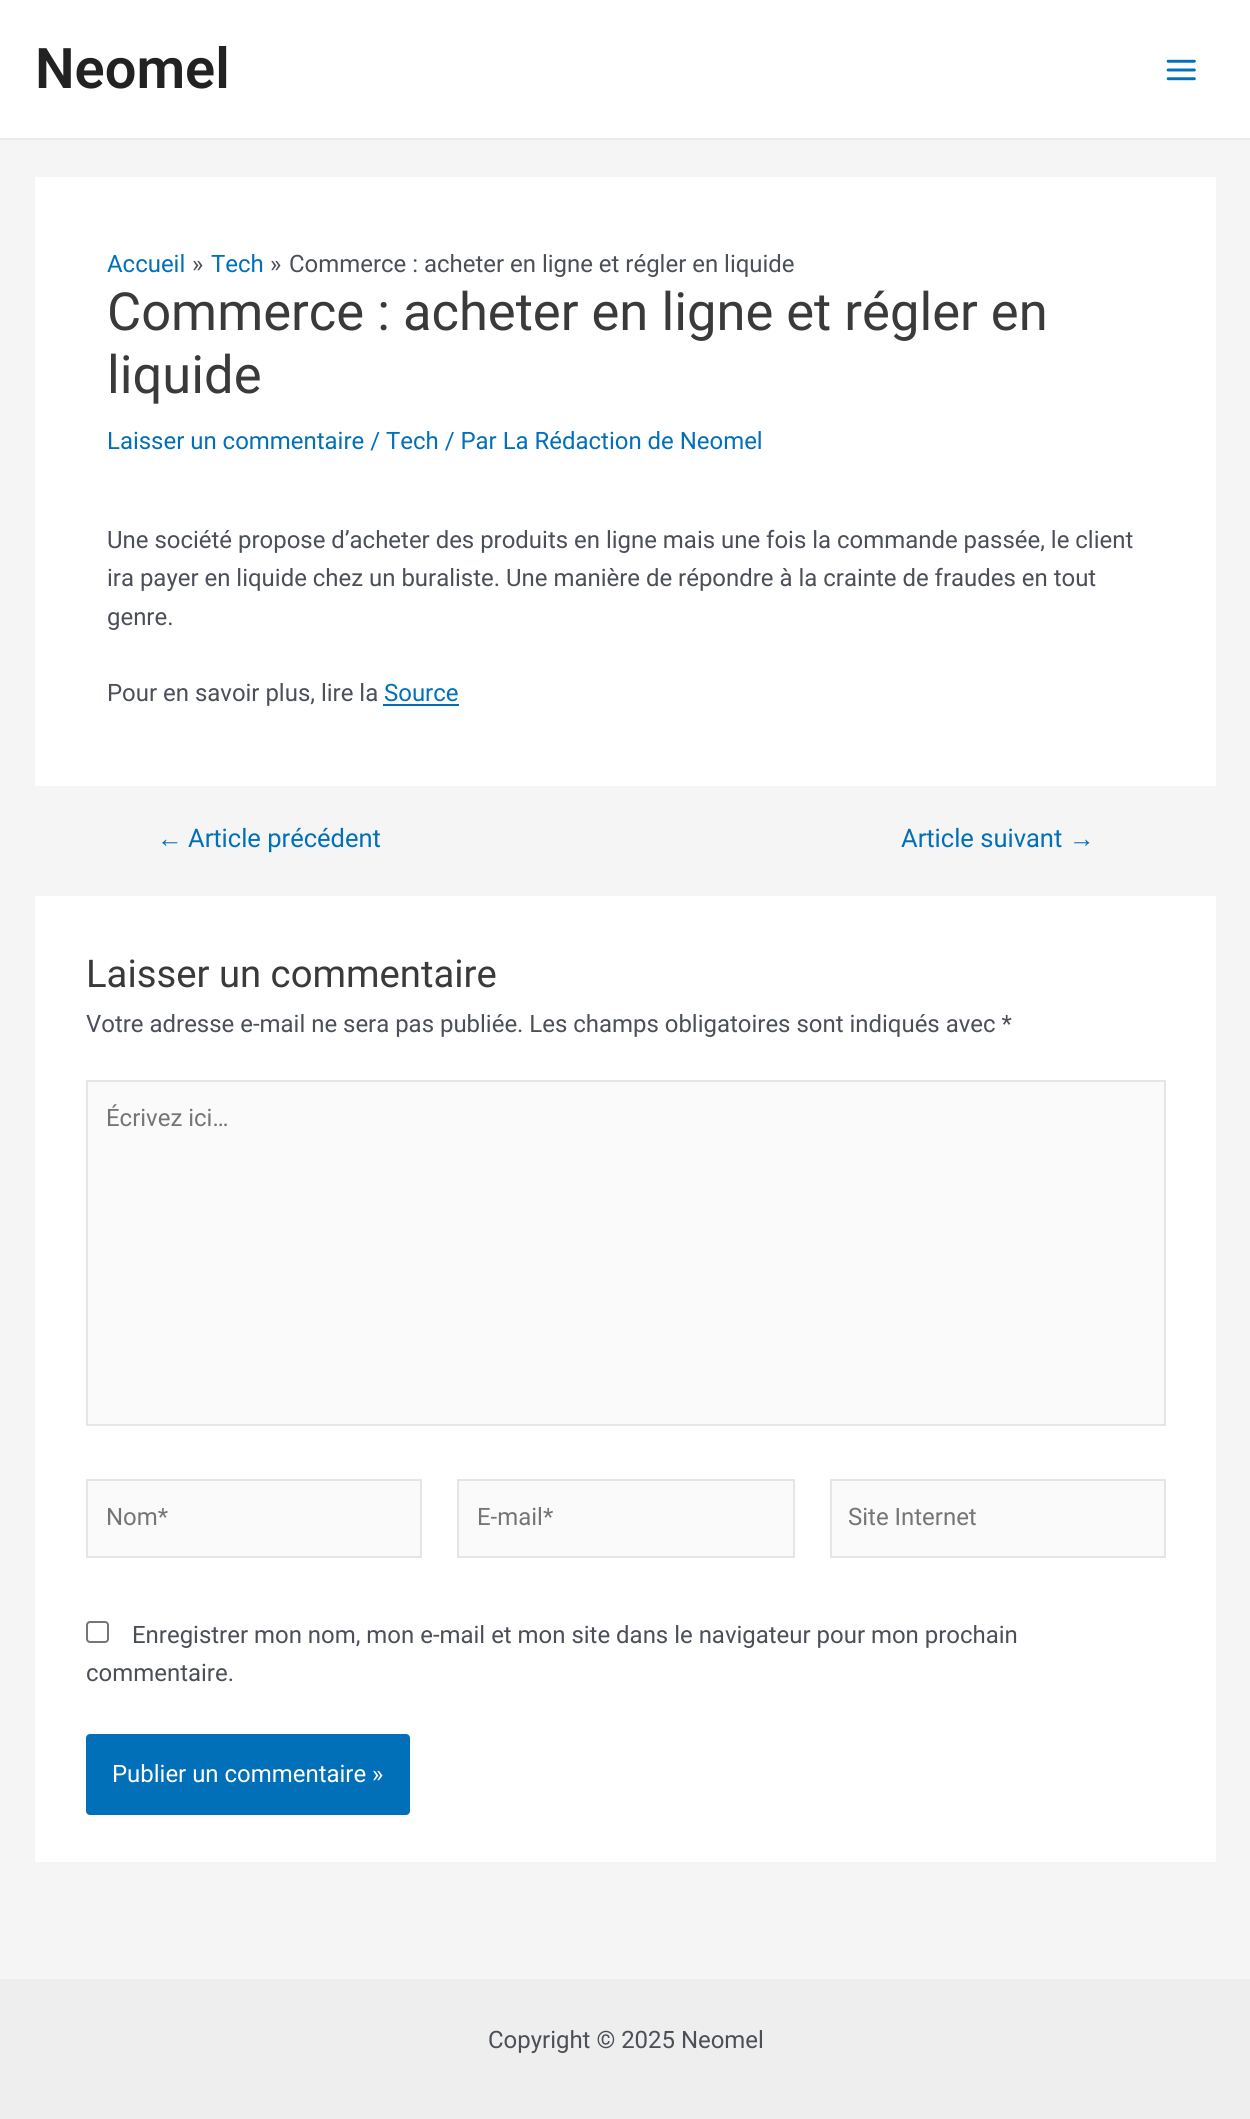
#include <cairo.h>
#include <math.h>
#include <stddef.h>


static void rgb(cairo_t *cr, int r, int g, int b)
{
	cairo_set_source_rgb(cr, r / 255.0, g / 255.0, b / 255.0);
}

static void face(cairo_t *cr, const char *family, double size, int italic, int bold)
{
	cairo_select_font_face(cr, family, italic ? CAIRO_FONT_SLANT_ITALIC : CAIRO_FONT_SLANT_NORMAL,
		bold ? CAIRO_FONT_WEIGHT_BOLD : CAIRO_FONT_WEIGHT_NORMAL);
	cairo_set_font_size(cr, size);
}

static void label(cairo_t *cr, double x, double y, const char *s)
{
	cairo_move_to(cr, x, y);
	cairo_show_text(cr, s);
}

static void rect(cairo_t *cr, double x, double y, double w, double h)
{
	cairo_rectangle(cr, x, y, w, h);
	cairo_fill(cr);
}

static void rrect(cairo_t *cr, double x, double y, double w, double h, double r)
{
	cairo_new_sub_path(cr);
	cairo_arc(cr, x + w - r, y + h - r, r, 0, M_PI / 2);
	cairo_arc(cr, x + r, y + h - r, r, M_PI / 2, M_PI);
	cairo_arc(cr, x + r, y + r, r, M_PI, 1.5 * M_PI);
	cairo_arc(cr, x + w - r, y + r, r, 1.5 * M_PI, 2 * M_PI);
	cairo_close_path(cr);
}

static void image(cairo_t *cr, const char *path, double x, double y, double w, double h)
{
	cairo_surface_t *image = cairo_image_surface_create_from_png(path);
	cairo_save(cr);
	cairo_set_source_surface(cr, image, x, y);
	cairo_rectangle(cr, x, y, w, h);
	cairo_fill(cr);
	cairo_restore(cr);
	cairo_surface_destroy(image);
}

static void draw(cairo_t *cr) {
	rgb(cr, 245, 245, 245);
	cairo_paint(cr);
	rgb(cr, 255, 255, 255);
	rect(cr, 0, 0, 1250, 138);
	rgb(cr, 234, 234, 234);
	rect(cr, 0, 138, 1250, 2);
	face(cr, "Roboto SemiBold", 56, 0, 0);
	rgb(cr, 34, 34, 34);
	label(cr, 35, 88, "Neomel");
	image(cr, "image0.png", 1166, 59, 30, 22);
	rgb(cr, 255, 255, 255);
	rect(cr, 35, 177, 1181, 609);
	face(cr, "Roboto", 23.95, 0, 0);
	rgb(cr, 1, 112, 185);
	label(cr, 107, 272, "Accueil");
	rgb(cr, 75, 79, 88);
	label(cr, 192, 272, "»");
	rgb(cr, 1, 112, 185);
	label(cr, 211, 272, "Tech");
	rgb(cr, 75, 79, 88);
	label(cr, 270, 272, "»");
	label(cr, 289, 272, "Commerce : acheter en ligne et régler en liquide");
	face(cr, "Roboto", 52.5, 0, 0);
	rgb(cr, 58, 58, 58);
	label(cr, 107, 330, "Commerce : acheter en ligne et régler en");
	label(cr, 107, 393, "liquide");
	face(cr, "Roboto", 23.95, 0, 0);
	rgb(cr, 1, 112, 185);
	label(cr, 107, 449, "Laisser un commentaire / Tech / Par La Rédaction de Neomel");
	rgb(cr, 75, 79, 88);
	label(cr, 107, 548, "Une société propose d’acheter des produits en ligne mais une fois la commande passée, le client");
	label(cr, 107, 586, "ira payer en liquide chez un buraliste. Une manière de répondre à la crainte de fraudes en tout");
	label(cr, 107, 625, "genre.");
	label(cr, 107, 701, "Pour en savoir plus, lire la");
	rgb(cr, 1, 112, 185);
	label(cr, 384, 701, "Source");
	rect(cr, 383, 704, 76, 2);
	face(cr, "Liberation Sans", 25.5, 0, 0);
	label(cr, 157, 847, "←");
	face(cr, "Roboto", 25.5, 0, 0);
	label(cr, 188, 847, "Article précédent");
	label(cr, 901, 847, "Article suivant");
	face(cr, "Liberation Sans", 25.5, 0, 0);
	label(cr, 1069, 847, "→");
	rgb(cr, 255, 255, 255);
	rect(cr, 35, 896, 1181, 966);
	face(cr, "Roboto", 38.25, 0, 0);
	rgb(cr, 58, 58, 58);
	label(cr, 86, 987, "Laisser un commentaire");
	face(cr, "Roboto", 23.95, 0, 0);
	rgb(cr, 75, 79, 88);
	label(cr, 86, 1032, "Votre adresse e-mail ne sera pas publiée. Les champs obligatoires sont indiqués avec *");
	rgb(cr, 250, 250, 250);
	cairo_rectangle(cr, 87, 1081, 1078, 344);
	cairo_fill_preserve(cr);
	rgb(cr, 229, 229, 229);
	cairo_stroke(cr);
	rgb(cr, 117, 117, 117);
	label(cr, 106, 1126, "Écrivez ici…");
	rgb(cr, 250, 250, 250);
	cairo_rectangle(cr, 87, 1480, 334, 77);
	cairo_fill_preserve(cr);
	rgb(cr, 229, 229, 229);
	cairo_stroke(cr);
	rgb(cr, 117, 117, 117);
	label(cr, 106, 1525, "Nom*");
	rgb(cr, 250, 250, 250);
	cairo_rectangle(cr, 458, 1480, 336, 77);
	cairo_fill_preserve(cr);
	rgb(cr, 229, 229, 229);
	cairo_stroke(cr);
	rgb(cr, 117, 117, 117);
	label(cr, 477, 1525, "E-mail*");
	rgb(cr, 250, 250, 250);
	cairo_rectangle(cr, 831, 1480, 334, 77);
	cairo_fill_preserve(cr);
	rgb(cr, 229, 229, 229);
	cairo_stroke(cr);
	rgb(cr, 117, 117, 117);
	label(cr, 848, 1525, "Site Internet");
	rrect(cr, 87, 1622, 21, 20, 3);
	rgb(cr, 118, 118, 118);
	cairo_stroke(cr);
	rgb(cr, 75, 79, 88);
	label(cr, 132, 1643, "Enregistrer mon nom, mon e-mail et mon site dans le navigateur pour mon prochain");
	label(cr, 86, 1681, "commentaire.");
	rgb(cr, 1, 112, 185);
	rrect(cr, 86, 1734, 324, 81, 4);
	cairo_fill(cr);
	rgb(cr, 255, 255, 255);
	label(cr, 112, 1782, "Publier un commentaire »");
	rgb(cr, 238, 238, 238);
	rect(cr, 0, 1979, 1250, 140);
	rgb(cr, 75, 79, 88);
	label(cr, 488, 2048, "Copyright © 2025 Neomel");
}

int main(void) {
	cairo_surface_t *surface = cairo_image_surface_create(CAIRO_FORMAT_RGB24, 1250, 2119);
	cairo_t *cr = cairo_create(surface);
	cairo_font_options_t *options = cairo_font_options_create();
	cairo_font_options_set_hint_metrics(options, CAIRO_HINT_METRICS_OFF);
	cairo_font_options_set_hint_style(options, CAIRO_HINT_STYLE_NONE);
	cairo_set_font_options(cr, options);
	cairo_set_miter_limit(cr, 4);
	draw(cr);
	cairo_surface_write_to_png(surface, "render.png");
	cairo_font_options_destroy(options);
	cairo_destroy(cr);
	cairo_surface_destroy(surface);
	return 0;
}
